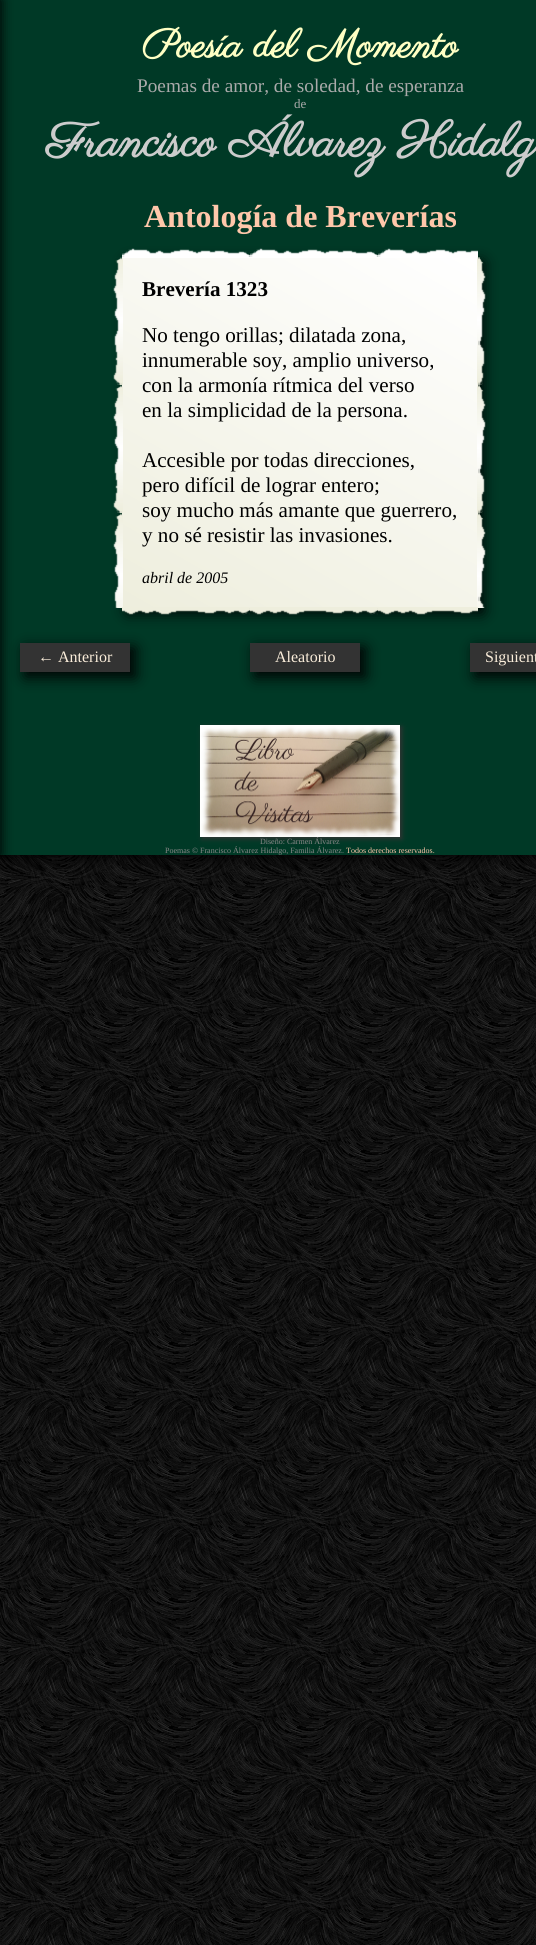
#include <cairo.h>
#include <math.h>
#include <stddef.h>


static void rgb(cairo_t *cr, int r, int g, int b)
{
	cairo_set_source_rgb(cr, r / 255.0, g / 255.0, b / 255.0);
}

static void face(cairo_t *cr, const char *family, double size, int italic, int bold)
{
	cairo_select_font_face(cr, family, italic ? CAIRO_FONT_SLANT_ITALIC : CAIRO_FONT_SLANT_NORMAL,
		bold ? CAIRO_FONT_WEIGHT_BOLD : CAIRO_FONT_WEIGHT_NORMAL);
	cairo_set_font_size(cr, size);
}

static void label(cairo_t *cr, double x, double y, const char *s)
{
	cairo_move_to(cr, x, y);
	cairo_show_text(cr, s);
}

static void rect(cairo_t *cr, double x, double y, double w, double h)
{
	cairo_rectangle(cr, x, y, w, h);
	cairo_fill(cr);
}

static void rrect(cairo_t *cr, double x, double y, double w, double h, double r)
{
	cairo_new_sub_path(cr);
	cairo_arc(cr, x + w - r, y + h - r, r, 0, M_PI / 2);
	cairo_arc(cr, x + r, y + h - r, r, M_PI / 2, M_PI);
	cairo_arc(cr, x + r, y + r, r, M_PI, 1.5 * M_PI);
	cairo_arc(cr, x + w - r, y + r, r, 1.5 * M_PI, 2 * M_PI);
	cairo_close_path(cr);
}

static void soft_shadow(cairo_t *cr, double x, double y, double w, double h, double r, double blur, double alpha)
{
	cairo_push_group_with_content(cr, CAIRO_CONTENT_ALPHA);
	cairo_set_operator(cr, CAIRO_OPERATOR_SOURCE);
	for (int i = 15; i >= -15 && fmin(w, h) + blur * i / 3 > 0; i -= 2) {
		double e = blur * i / 6;
		cairo_set_source_rgba(cr, 0, 0, 0, alpha * erfc((i - 1) / 8.5) / 2);
		rrect(cr, x - e, y - e, w + 2 * e, h + 2 * e, fmax(0, fmin(r + e + blur * .6, fmin(w, h) / 2 + e)));
		cairo_fill(cr);
	}
	cairo_pattern_t *soft = cairo_pop_group(cr);
	cairo_mask(cr, soft);
	cairo_pattern_destroy(soft);
}

static void image(cairo_t *cr, const char *path, double x, double y, double w, double h)
{
	cairo_surface_t *image = cairo_image_surface_create_from_png(path);
	cairo_save(cr);
	cairo_set_source_surface(cr, image, x, y);
	cairo_rectangle(cr, x, y, w, h);
	cairo_fill(cr);
	cairo_restore(cr);
	cairo_surface_destroy(image);
}

static void draw(cairo_t *cr) {
	cairo_pattern_t *gradient;
	rgb(cr, 255, 255, 255);
	cairo_paint(cr);
	image(cr, "image0.png", 0, 855, 536, 1090);
	rgb(cr, 0, 0, 0);
	soft_shadow(cr, 0, 2, 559, 855, 0, 7.5, 1);
	rgb(cr, 0, 57, 38);
	rect(cr, 0, 0, 536, 855);
	rgb(cr, 0, 0, 0);
	soft_shadow(cr, -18, 0, 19, 855, 0, 6, 1);
	face(cr, "Parisienne", 40, 0, 1);
	rgb(cr, 255, 255, 196);
	label(cr, 142, 57, "Poesía del Momento");
	face(cr, "Liberation Serif", 19.25, 0, 0);
	rgb(cr, 170, 170, 170);
	label(cr, 137, 92, "Poemas de amor, de soledad, de esperanza");
	face(cr, "Liberation Serif", 13, 0, 0);
	label(cr, 294, 108, "de");
	face(cr, "Parisienne", 48, 0, 1);
	rgb(cr, 204, 204, 204);
	label(cr, 46, 156, "Francisco Álvarez Hidalg");
	face(cr, "Liberation Serif", 32, 0, 1);
	rgb(cr, 255, 199, 170);
	label(cr, 144, 227, "Antología de Breverías");
	rgb(cr, 0, 0, 0);
	soft_shadow(cr, 127, 262, 356, 351, 0, 7.5, 1);
	gradient = cairo_pattern_create_linear(180, 641, 420, 224);
	cairo_pattern_add_color_stop_rgba(gradient, 0, 0.933, 0.933, 0.867, 1);
	cairo_pattern_add_color_stop_rgba(gradient, 1, 1, 1, 1, 1);
	cairo_set_source(cr, gradient);
	cairo_pattern_destroy(gradient);
	rect(cr, 122, 257, 356, 351);
	image(cr, "image1.png", 122, 248, 356, 10);
	image(cr, "image2.png", 113, 257, 10, 351);
	face(cr, "Liberation Serif", 21.1, 0, 1);
	rgb(cr, 0, 0, 0);
	label(cr, 142, 296, "Brevería 1323");
	face(cr, "Liberation Serif", 21.1, 0, 0);
	label(cr, 142, 342, "No tengo orillas; dilatada zona,");
	label(cr, 142, 367, "innumerable soy, amplio universo,");
	label(cr, 142, 392, "con la armonía rítmica del verso");
	label(cr, 142, 417, "en la simplicidad de la persona.");
	label(cr, 142, 467, "Accesible por todas direcciones,");
	label(cr, 142, 492, "pero difícil de lograr entero;");
	label(cr, 142, 517, "soy mucho más amante que guerrero,");
	label(cr, 142, 542, "y no sé resistir las invasiones.");
	face(cr, "Liberation Serif", 16, 1, 0);
	label(cr, 142, 583, "abril de 2005");
	image(cr, "image3.png", 477, 257, 9, 351);
	image(cr, "image4.png", 122, 607, 356, 8);
	rgb(cr, 0, 0, 0);
	soft_shadow(cr, 25, 648, 110, 29, 0, 7.5, 1);
	rgb(cr, 51, 51, 51);
	rect(cr, 20, 643, 110, 29);
	face(cr, "Liberation Serif", 16, 0, 0);
	rgb(cr, 250, 237, 218);
	label(cr, 38, 662, "← Anterior");
	rgb(cr, 0, 0, 0);
	soft_shadow(cr, 255, 648, 110, 29, 0, 7.5, 1);
	rgb(cr, 51, 51, 51);
	rect(cr, 250, 643, 110, 29);
	rgb(cr, 250, 237, 218);
	label(cr, 275, 662, "Aleatorio");
	rgb(cr, 0, 0, 0);
	soft_shadow(cr, 475, 648, 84, 29, 0, 7.5, 1);
	rgb(cr, 51, 51, 51);
	rect(cr, 470, 643, 66, 29);
	rgb(cr, 250, 237, 218);
	label(cr, 485, 662, "Siguient");
	rgb(cr, 51, 51, 51);
	soft_shadow(cr, 202, 727, 200, 112, 0, 2.5, 1);
	image(cr, "image5.png", 200, 725, 200, 112);
	face(cr, "Liberation Serif", 8, 0, 0);
	rgb(cr, 136, 136, 136);
	label(cr, 260, 844, "Diseño: Carmen Álvarez");
	label(cr, 165, 853, "Poemas © Francisco Álvarez Hidalgo, Familia Álvarez.");
	rgb(cr, 255, 199, 170);
	label(cr, 346, 853, "Todos derechos reservados.");
}

int main(void) {
	cairo_surface_t *surface = cairo_image_surface_create(CAIRO_FORMAT_RGB24, 536, 1945);
	cairo_t *cr = cairo_create(surface);
	cairo_font_options_t *options = cairo_font_options_create();
	cairo_font_options_set_hint_metrics(options, CAIRO_HINT_METRICS_OFF);
	cairo_font_options_set_hint_style(options, CAIRO_HINT_STYLE_NONE);
	cairo_set_font_options(cr, options);
	cairo_set_miter_limit(cr, 4);
	draw(cr);
	cairo_surface_write_to_png(surface, "render.png");
	cairo_font_options_destroy(options);
	cairo_destroy(cr);
	cairo_surface_destroy(surface);
	return 0;
}
